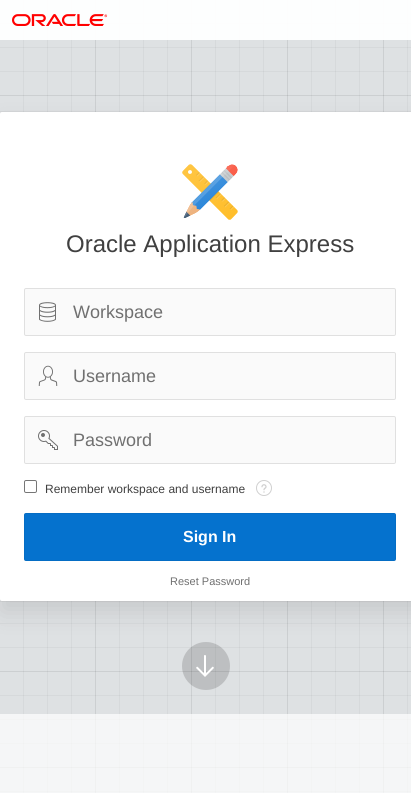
#include <cairo.h>
#include <math.h>
#include <stddef.h>


static void rgb(cairo_t *cr, int r, int g, int b)
{
	cairo_set_source_rgb(cr, r / 255.0, g / 255.0, b / 255.0);
}

static void face(cairo_t *cr, const char *family, double size, int italic, int bold)
{
	cairo_select_font_face(cr, family, italic ? CAIRO_FONT_SLANT_ITALIC : CAIRO_FONT_SLANT_NORMAL,
		bold ? CAIRO_FONT_WEIGHT_BOLD : CAIRO_FONT_WEIGHT_NORMAL);
	cairo_set_font_size(cr, size);
}

static void label(cairo_t *cr, double x, double y, const char *s)
{
	cairo_move_to(cr, x, y);
	cairo_show_text(cr, s);
}

static void rect(cairo_t *cr, double x, double y, double w, double h)
{
	cairo_rectangle(cr, x, y, w, h);
	cairo_fill(cr);
}

static void rrect(cairo_t *cr, double x, double y, double w, double h, double r)
{
	cairo_new_sub_path(cr);
	cairo_arc(cr, x + w - r, y + h - r, r, 0, M_PI / 2);
	cairo_arc(cr, x + r, y + h - r, r, M_PI / 2, M_PI);
	cairo_arc(cr, x + r, y + r, r, M_PI, 1.5 * M_PI);
	cairo_arc(cr, x + w - r, y + r, r, 1.5 * M_PI, 2 * M_PI);
	cairo_close_path(cr);
}

static void soft_shadow(cairo_t *cr, double x, double y, double w, double h, double r, double blur, double alpha)
{
	cairo_push_group_with_content(cr, CAIRO_CONTENT_ALPHA);
	cairo_set_operator(cr, CAIRO_OPERATOR_SOURCE);
	for (int i = 15; i >= -15 && fmin(w, h) + blur * i / 3 > 0; i -= 2) {
		double e = blur * i / 6;
		cairo_set_source_rgba(cr, 0, 0, 0, alpha * erfc((i - 1) / 8.5) / 2);
		rrect(cr, x - e, y - e, w + 2 * e, h + 2 * e, fmax(0, fmin(r + e + blur * .6, fmin(w, h) / 2 + e)));
		cairo_fill(cr);
	}
	cairo_pattern_t *soft = cairo_pop_group(cr);
	cairo_mask(cr, soft);
	cairo_pattern_destroy(soft);
}

static void image(cairo_t *cr, const char *path, double x, double y, double w, double h)
{
	cairo_surface_t *image = cairo_image_surface_create_from_png(path);
	cairo_save(cr);
	cairo_set_source_surface(cr, image, x, y);
	cairo_rectangle(cr, x, y, w, h);
	cairo_fill(cr);
	cairo_restore(cr);
	cairo_surface_destroy(image);
}

static void draw(cairo_t *cr) {
	rgb(cr, 222, 225, 227);
	cairo_paint(cr);
	rgb(cr, 214, 217, 219);
	rect(cr, 23, 0, 1, 793);
	rect(cr, 47, 0, 1, 793);
	rect(cr, 71, 0, 1, 793);
	rect(cr, 95, 0, 1, 793);
	rect(cr, 119, 0, 1, 793);
	rect(cr, 143, 0, 1, 793);
	rect(cr, 167, 0, 1, 793);
	rect(cr, 191, 0, 1, 793);
	rect(cr, 215, 0, 1, 793);
	rect(cr, 239, 0, 1, 793);
	rect(cr, 263, 0, 1, 793);
	rect(cr, 287, 0, 1, 793);
	rect(cr, 311, 0, 1, 793);
	rect(cr, 335, 0, 1, 793);
	rect(cr, 359, 0, 1, 793);
	rect(cr, 383, 0, 1, 793);
	rect(cr, 407, 0, 1, 793);
	image(cr, "image0.png", 0, 23, 411, 769);
	cairo_set_source_rgba(cr, 0, 0, 0, 0.05);
	rect(cr, 95, 0, 1, 793);
	rect(cr, 191, 0, 1, 793);
	rect(cr, 287, 0, 1, 793);
	rect(cr, 383, 0, 1, 793);
	rect(cr, 0, 95, 411, 1);
	rect(cr, 0, 671, 411, 1);
	rect(cr, 0, 767, 411, 1);
	cairo_set_source_rgba(cr, 1, 1, 1, 0.95);
	rect(cr, 0, 0, 411, 40);
	image(cr, "image1.png", 12, 14, 96, 12);
	cairo_rectangle(cr, -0.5, 111.5, 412, 490);
	cairo_set_source_rgba(cr, 0, 0, 0, 0.05);
	cairo_set_line_width(cr, 1);
	cairo_stroke(cr);
	cairo_set_source_rgba(cr, 0, 0, 0, 0.15);
	cairo_arc(cr, 206, 666, 24, 0, 2 * M_PI);
	cairo_fill(cr);
	rgb(cr, 0, 0, 0);
	soft_shadow(cr, 0, 124, 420, 489, 2, 12, 0.1);
	rgb(cr, 255, 255, 255);
	rrect(cr, 0, 112, 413, 489, 2);
	cairo_fill(cr);
	image(cr, "image2.png", 182, 164, 56, 56);
	face(cr, "Liberation Sans", 24, 0, 0);
	rgb(cr, 64, 64, 64);
	label(cr, 66, 252, "Oracle Application Express");
	rgb(cr, 250, 250, 250);
	rrect(cr, 24.5, 288.5, 371, 47, 1.5);
	cairo_fill_preserve(cr);
	rgb(cr, 224, 224, 224);
	cairo_stroke(cr);
	image(cr, "image3.png", 39, 302, 17, 20);
	face(cr, "Liberation Sans", 18, 0, 0);
	rgb(cr, 112, 112, 112);
	label(cr, 73, 318, "Workspace");
	rgb(cr, 250, 250, 250);
	rrect(cr, 24.5, 352.5, 371, 47, 1.5);
	cairo_fill_preserve(cr);
	rgb(cr, 224, 224, 224);
	cairo_stroke(cr);
	image(cr, "image4.png", 38, 365, 20, 21);
	rgb(cr, 112, 112, 112);
	label(cr, 73, 382, "Username");
	rgb(cr, 250, 250, 250);
	rrect(cr, 24.5, 416.5, 371, 47, 1.5);
	cairo_fill_preserve(cr);
	rgb(cr, 224, 224, 224);
	cairo_stroke(cr);
	image(cr, "image5.png", 38, 430, 20, 20);
	rgb(cr, 112, 112, 112);
	label(cr, 73, 446, "Password");
	rrect(cr, 24.5, 480.5, 12, 12, 1.5);
	rgb(cr, 118, 118, 118);
	cairo_stroke(cr);
	face(cr, "Liberation Sans", 12, 0, 0);
	rgb(cr, 64, 64, 64);
	label(cr, 45, 493, "Remember workspace and username");
	image(cr, "image6.png", 256, 480, 16, 16);
	rgb(cr, 5, 114, 206);
	rrect(cr, 24, 513, 372, 48, 2);
	cairo_fill(cr);
	cairo_rectangle(cr, 24.5, 513.5, 371, 47);
	cairo_set_source_rgba(cr, 0, 0, 0, 0.05);
	cairo_stroke(cr);
	face(cr, "Liberation Sans", 16, 0, 1);
	rgb(cr, 255, 255, 255);
	label(cr, 183, 542, "Sign In");
	face(cr, "Liberation Sans", 11, 0, 0);
	rgb(cr, 112, 112, 112);
	label(cr, 170, 585, "Reset Password");
	image(cr, "image7.png", 196, 655, 18, 22);
	cairo_set_source_rgba(cr, 1, 1, 1, 0.7);
	rect(cr, 0, 714, 411, 79);
}

int main(void) {
	cairo_surface_t *surface = cairo_image_surface_create(CAIRO_FORMAT_RGB24, 411, 793);
	cairo_t *cr = cairo_create(surface);
	cairo_font_options_t *options = cairo_font_options_create();
	cairo_font_options_set_hint_metrics(options, CAIRO_HINT_METRICS_OFF);
	cairo_font_options_set_hint_style(options, CAIRO_HINT_STYLE_NONE);
	cairo_set_font_options(cr, options);
	cairo_set_miter_limit(cr, 4);
	draw(cr);
	cairo_surface_write_to_png(surface, "render.png");
	cairo_font_options_destroy(options);
	cairo_destroy(cr);
	cairo_surface_destroy(surface);
	return 0;
}
